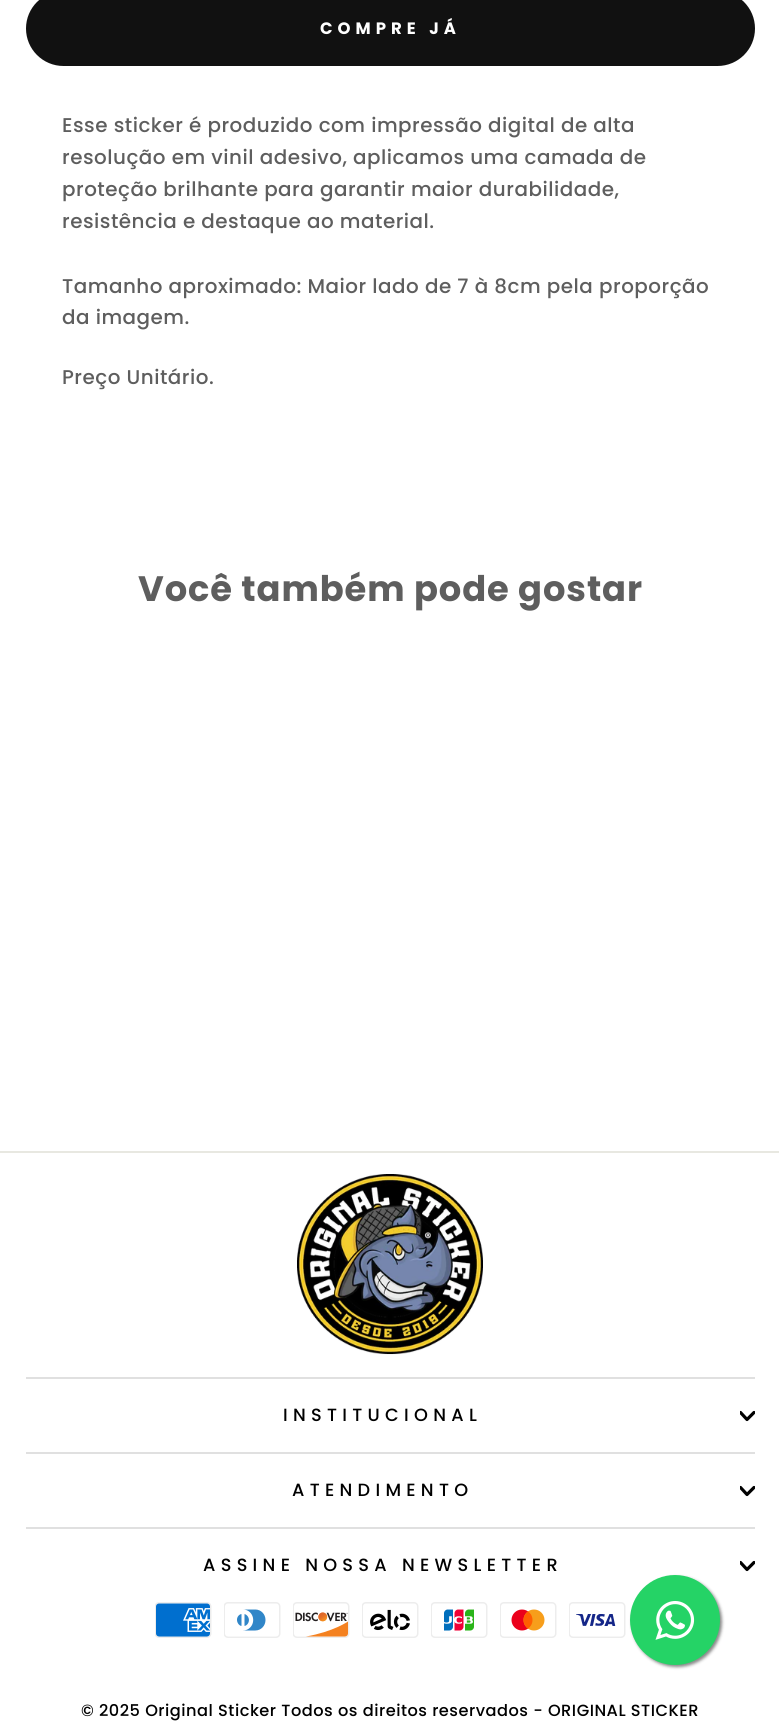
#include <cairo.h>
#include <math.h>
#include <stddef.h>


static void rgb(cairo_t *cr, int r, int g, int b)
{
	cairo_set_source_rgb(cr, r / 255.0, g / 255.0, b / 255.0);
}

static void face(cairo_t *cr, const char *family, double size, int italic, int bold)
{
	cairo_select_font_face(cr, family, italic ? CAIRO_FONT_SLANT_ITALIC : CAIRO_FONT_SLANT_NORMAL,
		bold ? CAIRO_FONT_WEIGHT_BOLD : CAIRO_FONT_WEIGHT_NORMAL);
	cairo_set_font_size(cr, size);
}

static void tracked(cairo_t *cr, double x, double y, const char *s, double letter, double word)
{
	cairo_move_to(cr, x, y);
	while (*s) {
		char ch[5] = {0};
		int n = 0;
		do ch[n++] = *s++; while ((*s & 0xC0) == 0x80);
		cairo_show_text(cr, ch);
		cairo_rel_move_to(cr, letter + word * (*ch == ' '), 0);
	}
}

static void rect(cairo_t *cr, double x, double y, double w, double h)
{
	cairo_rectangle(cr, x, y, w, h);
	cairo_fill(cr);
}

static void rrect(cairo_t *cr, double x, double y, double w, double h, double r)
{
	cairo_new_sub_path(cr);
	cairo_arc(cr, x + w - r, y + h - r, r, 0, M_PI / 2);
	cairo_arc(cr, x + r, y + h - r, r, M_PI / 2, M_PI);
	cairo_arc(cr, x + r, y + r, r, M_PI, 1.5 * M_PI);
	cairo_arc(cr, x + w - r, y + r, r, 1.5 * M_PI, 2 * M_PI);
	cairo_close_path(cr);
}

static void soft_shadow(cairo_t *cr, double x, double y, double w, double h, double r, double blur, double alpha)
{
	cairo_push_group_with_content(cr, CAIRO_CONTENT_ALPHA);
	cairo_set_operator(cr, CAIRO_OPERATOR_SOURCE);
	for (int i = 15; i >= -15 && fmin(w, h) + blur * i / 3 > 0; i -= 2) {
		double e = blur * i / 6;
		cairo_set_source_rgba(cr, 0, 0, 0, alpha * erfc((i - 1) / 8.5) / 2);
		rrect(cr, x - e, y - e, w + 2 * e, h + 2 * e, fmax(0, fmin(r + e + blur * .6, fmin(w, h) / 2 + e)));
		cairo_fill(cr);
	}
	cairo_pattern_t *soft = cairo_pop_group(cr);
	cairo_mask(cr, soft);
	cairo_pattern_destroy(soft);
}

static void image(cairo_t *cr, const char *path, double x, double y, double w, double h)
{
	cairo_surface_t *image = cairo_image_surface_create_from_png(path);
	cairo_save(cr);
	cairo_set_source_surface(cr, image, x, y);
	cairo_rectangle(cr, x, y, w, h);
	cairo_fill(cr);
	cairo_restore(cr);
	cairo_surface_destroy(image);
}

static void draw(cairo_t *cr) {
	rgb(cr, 255, 255, 255);
	cairo_paint(cr);
	rgb(cr, 17, 17, 17);
	rrect(cr, 26, -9, 729, 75, 37.5);
	cairo_fill(cr);
	face(cr, "Poppins", 16.5, 0, 1);
	rgb(cr, 255, 255, 255);
	tracked(cr, 320, 34, "COMPRE JÁ", 5, 0);
	face(cr, "Poppins Medium", 19.9, 0, 0);
	rgb(cr, 94, 94, 94);
	tracked(cr, 62, 132, "Esse sticker é produzido com impressão digital de alta", 0.5, 0);
	tracked(cr, 62, 164, "resolução em vinil adesivo, aplicamos uma camada de", 0.5, 0);
	tracked(cr, 62, 196, "proteção brilhante para garantir maior durabilidade,", 0.5, 0);
	tracked(cr, 62, 228, "resistência e destaque ao material.", 0.5, 0);
	tracked(cr, 62, 293, "Tamanho aproximado: Maior lado de 7 à 8cm pela proporção", 0.5, 0);
	tracked(cr, 62, 324, "da imagem.", 0.5, 0);
	tracked(cr, 62, 384, "Preço Unitário.", 0.5, 0);
	face(cr, "Poppins", 35.3, 0, 1);
	tracked(cr, 138, 601, "Você também pode gostar", 0.9, 0);
	rgb(cr, 232, 232, 225);
	rect(cr, 0, 1151, 779, 2);
	image(cr, "image0.png", 297, 1174, 186, 181);
	rgb(cr, 224, 224, 224);
	rect(cr, 26, 1377, 729, 2);
	face(cr, "Poppins Medium", 17.7, 0, 0);
	rgb(cr, 0, 0, 0);
	tracked(cr, 283, 1421, "INSTITUCIONAL", 5.3, 0);
	cairo_save(cr);
	cairo_rectangle(cr, 740, 1409, 15, 15);
	cairo_clip(cr);
	cairo_new_path(cr);
	cairo_move_to(cr, 740.5, 1412.5);
	cairo_line_to(cr, 747, 1419.5);
	cairo_line_to(cr, 754, 1412.5);
	cairo_set_line_width(cr, 3.2);
	cairo_set_line_cap(cr, CAIRO_LINE_CAP_ROUND);
	cairo_set_line_join(cr, CAIRO_LINE_JOIN_ROUND);
	cairo_stroke(cr);
	cairo_restore(cr);
	rgb(cr, 224, 224, 224);
	rect(cr, 26, 1452, 729, 2);
	rgb(cr, 0, 0, 0);
	tracked(cr, 292, 1496, "ATENDIMENTO", 5.3, 0);
	cairo_save(cr);
	cairo_rectangle(cr, 740, 1484, 15, 15);
	cairo_clip(cr);
	cairo_new_path(cr);
	cairo_move_to(cr, 740.5, 1487.5);
	cairo_line_to(cr, 747, 1494.5);
	cairo_line_to(cr, 754, 1487.5);
	cairo_set_line_width(cr, 3.2);
	cairo_set_line_cap(cr, CAIRO_LINE_CAP_ROUND);
	cairo_set_line_join(cr, CAIRO_LINE_JOIN_ROUND);
	cairo_stroke(cr);
	cairo_restore(cr);
	rgb(cr, 224, 224, 224);
	rect(cr, 26, 1527, 729, 2);
	rgb(cr, 0, 0, 0);
	tracked(cr, 203, 1571, "ASSINE NOSSA NEWSLETTER", 5.3, 0);
	cairo_save(cr);
	cairo_rectangle(cr, 740, 1559, 15, 15);
	cairo_clip(cr);
	cairo_new_path(cr);
	cairo_move_to(cr, 740.5, 1562.5);
	cairo_line_to(cr, 747, 1569.5);
	cairo_line_to(cr, 754, 1562.5);
	cairo_set_line_width(cr, 3.2);
	cairo_set_line_cap(cr, CAIRO_LINE_CAP_ROUND);
	cairo_set_line_join(cr, CAIRO_LINE_JOIN_ROUND);
	cairo_stroke(cr);
	cairo_restore(cr);
	image(cr, "image1.png", 155, 1602, 57, 36);
	image(cr, "image2.png", 224, 1602, 57, 36);
	image(cr, "image3.png", 293, 1602, 57, 36);
	image(cr, "image4.png", 362, 1602, 57, 36);
	image(cr, "image5.png", 431, 1602, 57, 36);
	image(cr, "image6.png", 500, 1602, 57, 36);
	image(cr, "image7.png", 569, 1602, 57, 36);
	face(cr, "Poppins Medium", 16.2, 0, 0);
	tracked(cr, 81, 1716, "© 2025 Original Sticker Todos os direitos reservados - ORIGINAL STICKER", 0.5, 0);
	rgb(cr, 136, 136, 136);
	soft_shadow(cr, 632, 1577, 90, 90, 45, 1.5, 1);
	rgb(cr, 37, 211, 102);
	cairo_arc(cr, 675, 1620, 45, 0, 2 * M_PI);
	cairo_fill(cr);
	image(cr, "image8.png", 655, 1601, 40, 39);
}

int main(void) {
	cairo_surface_t *surface = cairo_image_surface_create(CAIRO_FORMAT_RGB24, 779, 1725);
	cairo_t *cr = cairo_create(surface);
	cairo_font_options_t *options = cairo_font_options_create();
	cairo_font_options_set_hint_metrics(options, CAIRO_HINT_METRICS_OFF);
	cairo_font_options_set_hint_style(options, CAIRO_HINT_STYLE_NONE);
	cairo_set_font_options(cr, options);
	cairo_set_miter_limit(cr, 4);
	draw(cr);
	cairo_surface_write_to_png(surface, "render.png");
	cairo_font_options_destroy(options);
	cairo_destroy(cr);
	cairo_surface_destroy(surface);
	return 0;
}
